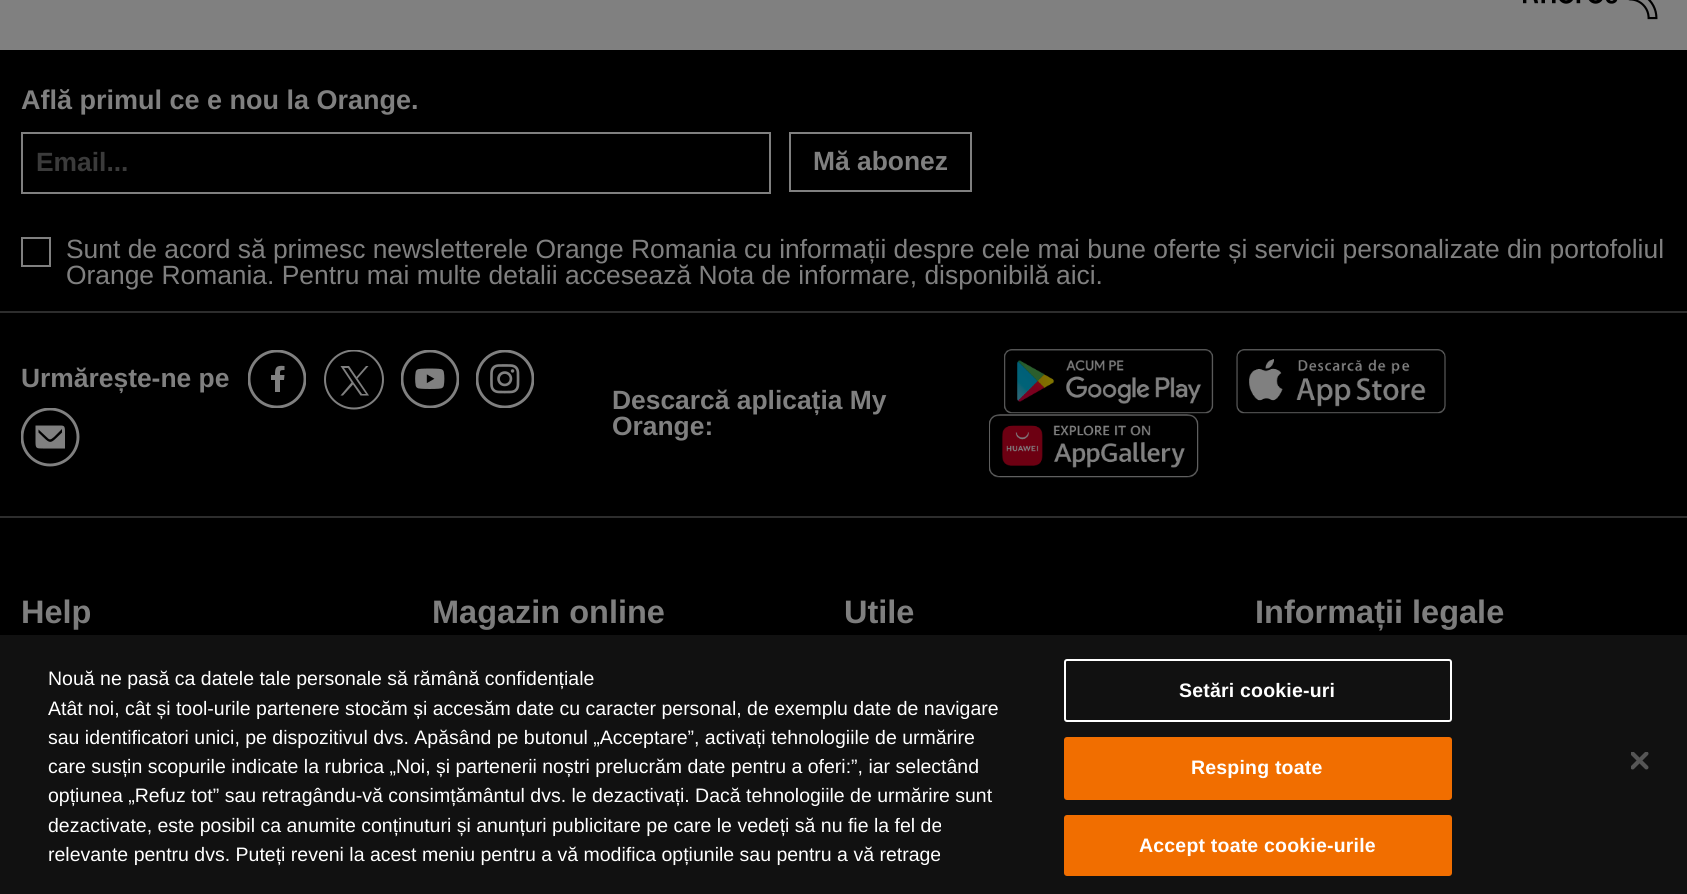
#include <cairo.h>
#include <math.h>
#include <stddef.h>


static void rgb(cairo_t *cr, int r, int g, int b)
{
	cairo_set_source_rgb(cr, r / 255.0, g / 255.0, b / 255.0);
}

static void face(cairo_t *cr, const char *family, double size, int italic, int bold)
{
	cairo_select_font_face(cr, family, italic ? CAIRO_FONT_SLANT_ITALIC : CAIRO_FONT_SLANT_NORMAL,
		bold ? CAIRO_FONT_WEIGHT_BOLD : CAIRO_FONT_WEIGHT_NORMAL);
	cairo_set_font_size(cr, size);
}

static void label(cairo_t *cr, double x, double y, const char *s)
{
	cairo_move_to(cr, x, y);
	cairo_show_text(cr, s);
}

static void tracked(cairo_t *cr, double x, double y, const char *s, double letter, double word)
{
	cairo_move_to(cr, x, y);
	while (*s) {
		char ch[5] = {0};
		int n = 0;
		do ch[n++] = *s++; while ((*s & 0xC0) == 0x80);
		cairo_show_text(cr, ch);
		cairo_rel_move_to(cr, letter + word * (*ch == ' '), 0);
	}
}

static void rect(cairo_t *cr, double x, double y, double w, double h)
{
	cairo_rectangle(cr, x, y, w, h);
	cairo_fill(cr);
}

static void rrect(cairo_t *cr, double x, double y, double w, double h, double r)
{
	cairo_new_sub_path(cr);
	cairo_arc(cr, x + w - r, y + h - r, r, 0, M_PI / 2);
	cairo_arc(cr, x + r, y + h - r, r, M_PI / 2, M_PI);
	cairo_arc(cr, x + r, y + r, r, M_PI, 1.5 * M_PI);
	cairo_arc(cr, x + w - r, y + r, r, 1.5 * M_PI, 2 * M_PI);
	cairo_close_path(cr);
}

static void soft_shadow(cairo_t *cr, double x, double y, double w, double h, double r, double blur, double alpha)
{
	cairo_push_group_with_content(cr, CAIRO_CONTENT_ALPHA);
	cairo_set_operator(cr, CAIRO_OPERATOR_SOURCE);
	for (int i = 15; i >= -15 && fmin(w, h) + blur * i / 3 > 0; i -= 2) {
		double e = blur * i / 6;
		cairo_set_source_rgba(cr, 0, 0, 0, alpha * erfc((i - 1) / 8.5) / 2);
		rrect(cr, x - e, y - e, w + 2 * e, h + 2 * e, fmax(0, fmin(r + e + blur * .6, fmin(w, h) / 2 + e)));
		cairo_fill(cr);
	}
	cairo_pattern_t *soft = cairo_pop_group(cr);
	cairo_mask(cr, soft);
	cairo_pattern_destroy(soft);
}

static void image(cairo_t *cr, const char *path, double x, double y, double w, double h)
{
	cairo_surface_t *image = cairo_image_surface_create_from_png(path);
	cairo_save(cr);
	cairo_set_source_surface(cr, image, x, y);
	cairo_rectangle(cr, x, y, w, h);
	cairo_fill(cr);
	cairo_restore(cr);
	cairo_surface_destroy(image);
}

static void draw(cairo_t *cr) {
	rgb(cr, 128, 128, 128);
	cairo_paint(cr);
	image(cr, "image0.png", 1523, 0, 135, 20);
	rgb(cr, 0, 0, 0);
	rect(cr, 0, 50, 1687, 585);
	rgb(cr, 45, 45, 45);
	rect(cr, 0, 311, 1687, 2);
	face(cr, "Liberation Sans", 27, 0, 1);
	rgb(cr, 128, 128, 128);
	label(cr, 21, 109, "Află primul ce e nou la Orange.");
	cairo_rectangle(cr, 22, 133, 748, 60);
	cairo_stroke(cr);
	face(cr, "Liberation Sans", 26.4, 0, 1);
	rgb(cr, 59, 59, 59);
	label(cr, 36, 171, "Email...");
	cairo_rectangle(cr, 790, 133, 181, 58);
	rgb(cr, 128, 128, 128);
	cairo_stroke(cr);
	label(cr, 813, 170, "Mă abonez");
	cairo_rectangle(cr, 22, 238, 28, 28);
	cairo_stroke(cr);
	face(cr, "Liberation Sans", 26.4, 0, 0);
	label(cr, 66, 258, "Sunt de acord să primesc newsletterele Orange Romania cu informații despre cele mai bune oferte și servicii personalizate din portofoliul");
	label(cr, 66, 284, "Orange Romania. Pentru mai multe detalii accesează Nota de informare, disponibilă");
	label(cr, 1056, 284, "aici.");
	rgb(cr, 45, 45, 45);
	rect(cr, 0, 516, 1687, 2);
	face(cr, "Liberation Sans", 26.4, 0, 1);
	rgb(cr, 128, 128, 128);
	label(cr, 21, 387, "Urmărește-ne pe");
	cairo_save(cr);
	cairo_rectangle(cr, 248, 350, 58, 58);
	cairo_clip(cr);
	cairo_arc(cr, 277, 379, 28, 0, 2 * M_PI);
	cairo_set_line_width(cr, 2.9);
	cairo_stroke(cr);
	cairo_restore(cr);
	cairo_new_path(cr);
	cairo_move_to(cr, 280, 392);
	cairo_line_to(cr, 280, 380);
	cairo_line_to(cr, 284, 380);
	cairo_line_to(cr, 284.5, 375);
	cairo_line_to(cr, 280, 375);
	cairo_curve_to(cr, 280, 370.5, 279.5, 370, 284.5, 370);
	cairo_line_to(cr, 284.5, 366);
	cairo_curve_to(cr, 275.5, 365, 275, 368, 275, 375);
	cairo_line_to(cr, 271, 375);
	cairo_line_to(cr, 271, 380);
	cairo_line_to(cr, 275, 380);
	cairo_line_to(cr, 275, 392);
	cairo_line_to(cr, 280, 392);
	cairo_fill(cr);
	cairo_new_path(cr);
	cairo_move_to(cr, 357.5, 378.5);
	cairo_line_to(cr, 368.5, 366);
	cairo_line_to(cr, 366, 366);
	cairo_line_to(cr, 356.5, 377);
	cairo_line_to(cr, 349, 366);
	cairo_line_to(cr, 340.5, 366);
	cairo_line_to(cr, 351.5, 382.5);
	cairo_line_to(cr, 340.5, 395.5);
	cairo_line_to(cr, 343, 395.5);
	cairo_line_to(cr, 353, 384.5);
	cairo_line_to(cr, 360.5, 395.5);
	cairo_line_to(cr, 369, 395.5);
	cairo_close_path(cr);
	cairo_move_to(cr, 354, 383);
	cairo_line_to(cr, 344, 368);
	cairo_line_to(cr, 348, 368);
	cairo_line_to(cr, 366, 394);
	cairo_line_to(cr, 362, 394);
	cairo_close_path(cr);
	cairo_fill(cr);
	cairo_save(cr);
	cairo_rectangle(cr, 324, 350, 60, 60);
	cairo_clip(cr);
	cairo_arc(cr, 354, 379.5, 29, 0, 2 * M_PI);
	cairo_stroke(cr);
	cairo_restore(cr);
	image(cr, "image1.png", 401, 350, 58, 58);
	image(cr, "image2.png", 476, 350, 58, 58);
	cairo_save(cr);
	cairo_rectangle(cr, 21, 408, 59, 59);
	cairo_clip(cr);
	cairo_arc(cr, 50, 437, 28, 0, 2 * M_PI);
	cairo_set_line_width(cr, 2.9);
	cairo_stroke(cr);
	cairo_restore(cr);
	cairo_new_path(cr);
	cairo_move_to(cr, 65, 448.5);
	cairo_line_to(cr, 43, 448.5);
	cairo_curve_to(cr, 36.5, 448.5, 35.5, 448.5, 35.5, 442);
	cairo_line_to(cr, 35.5, 425.5);
	cairo_line_to(cr, 57.5, 425.5);
	cairo_curve_to(cr, 64, 425.5, 65, 425, 65, 432);
	cairo_close_path(cr);
	cairo_move_to(cr, 38.5, 429.5);
	cairo_line_to(cr, 38.5, 432.5);
	cairo_curve_to(cr, 51.5, 445, 49, 445, 62, 432.5);
	cairo_line_to(cr, 62, 429);
	cairo_line_to(cr, 54, 437);
	cairo_curve_to(cr, 50, 440.5, 49.5, 440, 46, 436.5);
	cairo_close_path(cr);
	cairo_fill(cr);
	label(cr, 612, 409, "Descarcă aplicația My");
	label(cr, 612, 435, "Orange:");
	image(cr, "image3.png", 1004, 349, 210, 65);
	image(cr, "image4.png", 1236, 349, 210, 65);
	image(cr, "image5.png", 989, 414, 210, 64);
	face(cr, "Liberation Sans", 32.5, 0, 1);
	label(cr, 21, 623, "Help");
	label(cr, 432, 623, "Magazin online");
	label(cr, 844, 623, "Utile");
	label(cr, 1255, 623, "Informații legale");
	rgb(cr, 0, 0, 0);
	soft_shadow(cr, 0, 635, 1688, 259, 0, 13.5, 0.2);
	rgb(cr, 17, 17, 17);
	rect(cr, 0, 635, 1687, 259);
	face(cr, "Liberation Sans", 19.5, 0, 0);
	rgb(cr, 255, 255, 255);
	label(cr, 48, 685, "Nouă ne pasă ca datele tale personale să rămână confidențiale");
	label(cr, 48, 715, "Atât noi, cât și tool-urile partenere stocăm și accesăm date cu caracter personal, de exemplu date de navigare");
	label(cr, 48, 744, "sau identificatori unici, pe dispozitivul dvs. Apăsând pe butonul „Acceptare”, activați tehnologiile de urmărire");
	label(cr, 48, 773, "care susțin scopurile indicate la rubrica „Noi, și partenerii noștri prelucrăm date pentru a oferi:”, iar selectând");
	label(cr, 48, 802, "opțiunea „Refuz tot” sau retragându-vă consimțământul dvs. le dezactivați. Dacă tehnologiile de urmărire sunt");
	label(cr, 48, 832, "dezactivate, este posibil ca anumite conținuturi și anunțuri publicitare pe care le vedeți să nu fie la fel de");
	label(cr, 48, 861, "relevante pentru dvs. Puteți reveni la acest meniu pentru a vă modifica opțiunile sau pentru a vă retrage");
	rrect(cr, 1065, 660, 386, 61, 2);
	cairo_stroke(cr);
	face(cr, "Liberation Sans", 19.5, 0, 1);
	tracked(cr, 1179, 697, "Setări cookie-uri", 0.2, 0);
	rgb(cr, 241, 110, 0);
	rrect(cr, 1065, 738, 386, 61, 2);
	cairo_fill_preserve(cr);
	cairo_stroke(cr);
	rgb(cr, 255, 255, 255);
	tracked(cr, 1191, 774, "Resping toate", 0.2, 0);
	rgb(cr, 241, 110, 0);
	rrect(cr, 1065, 816, 386, 59, 2);
	cairo_fill_preserve(cr);
	cairo_stroke(cr);
	rgb(cr, 255, 255, 255);
	tracked(cr, 1139, 852, "Accept toate cookie-urile", 0.2, 0);
	image(cr, "image6.png", 1631, 752, 18, 18);
}

int main(void) {
	cairo_surface_t *surface = cairo_image_surface_create(CAIRO_FORMAT_RGB24, 1687, 894);
	cairo_t *cr = cairo_create(surface);
	cairo_font_options_t *options = cairo_font_options_create();
	cairo_font_options_set_hint_metrics(options, CAIRO_HINT_METRICS_OFF);
	cairo_font_options_set_hint_style(options, CAIRO_HINT_STYLE_NONE);
	cairo_set_font_options(cr, options);
	cairo_set_miter_limit(cr, 4);
	draw(cr);
	cairo_surface_write_to_png(surface, "render.png");
	cairo_font_options_destroy(options);
	cairo_destroy(cr);
	cairo_surface_destroy(surface);
	return 0;
}
